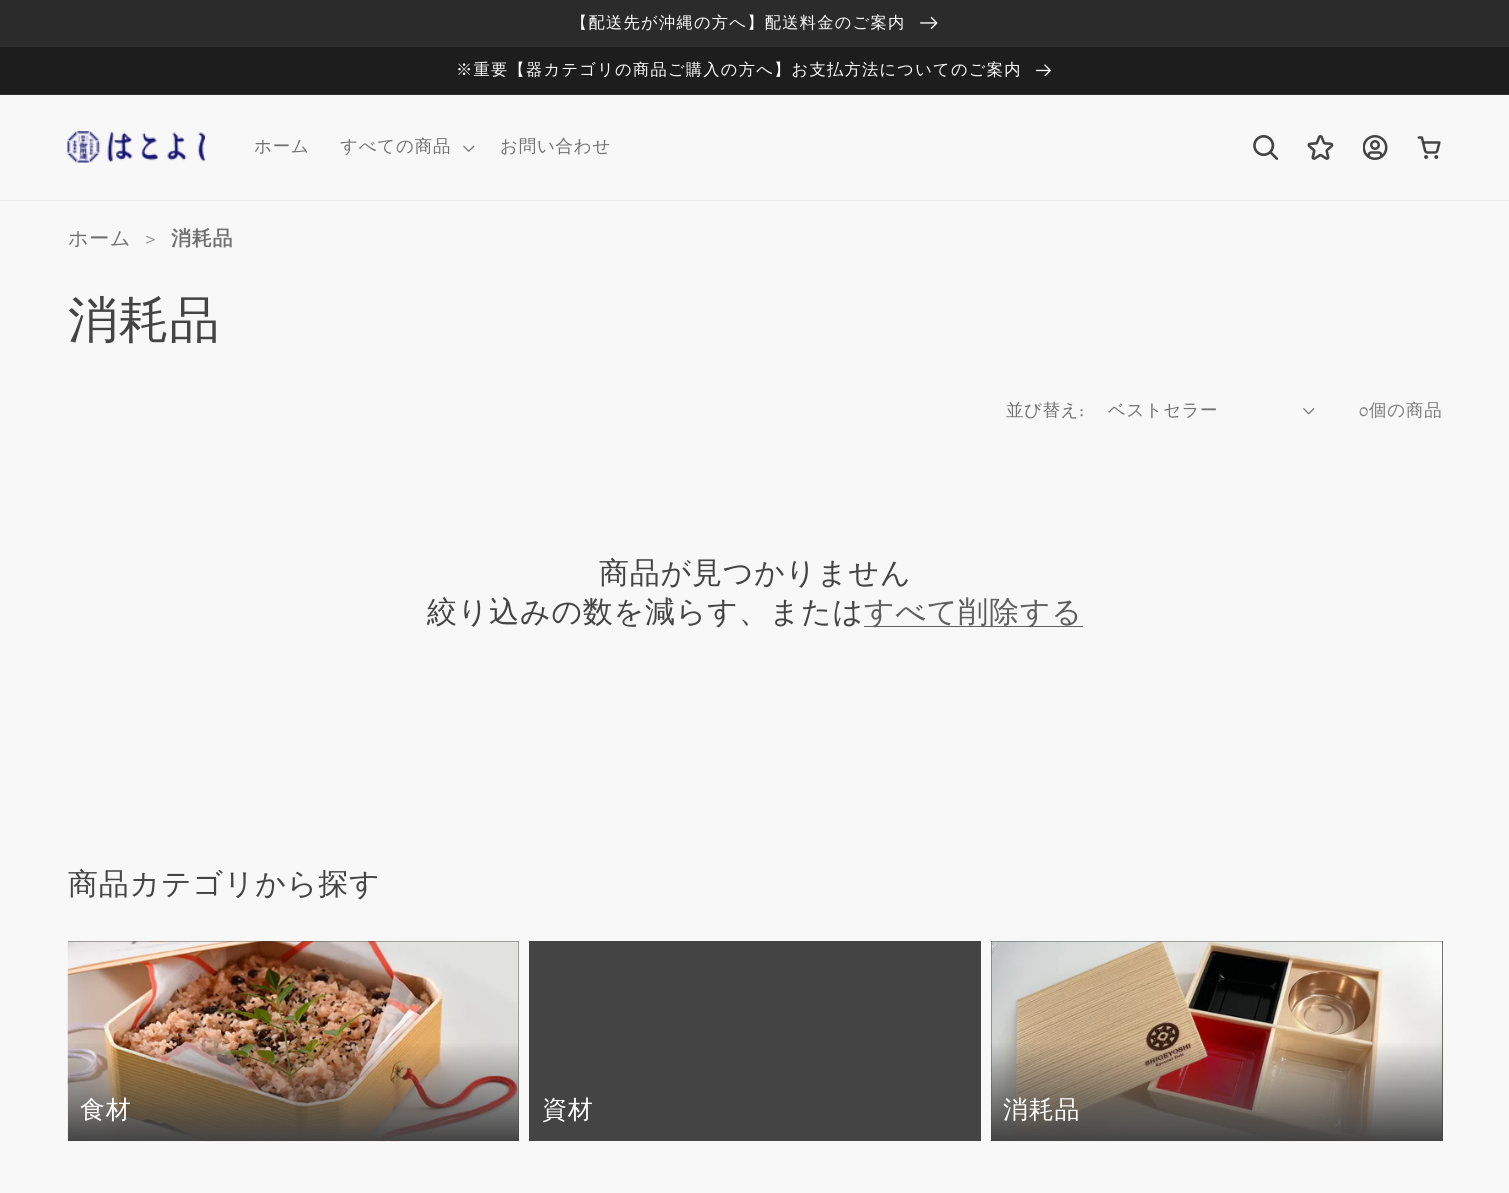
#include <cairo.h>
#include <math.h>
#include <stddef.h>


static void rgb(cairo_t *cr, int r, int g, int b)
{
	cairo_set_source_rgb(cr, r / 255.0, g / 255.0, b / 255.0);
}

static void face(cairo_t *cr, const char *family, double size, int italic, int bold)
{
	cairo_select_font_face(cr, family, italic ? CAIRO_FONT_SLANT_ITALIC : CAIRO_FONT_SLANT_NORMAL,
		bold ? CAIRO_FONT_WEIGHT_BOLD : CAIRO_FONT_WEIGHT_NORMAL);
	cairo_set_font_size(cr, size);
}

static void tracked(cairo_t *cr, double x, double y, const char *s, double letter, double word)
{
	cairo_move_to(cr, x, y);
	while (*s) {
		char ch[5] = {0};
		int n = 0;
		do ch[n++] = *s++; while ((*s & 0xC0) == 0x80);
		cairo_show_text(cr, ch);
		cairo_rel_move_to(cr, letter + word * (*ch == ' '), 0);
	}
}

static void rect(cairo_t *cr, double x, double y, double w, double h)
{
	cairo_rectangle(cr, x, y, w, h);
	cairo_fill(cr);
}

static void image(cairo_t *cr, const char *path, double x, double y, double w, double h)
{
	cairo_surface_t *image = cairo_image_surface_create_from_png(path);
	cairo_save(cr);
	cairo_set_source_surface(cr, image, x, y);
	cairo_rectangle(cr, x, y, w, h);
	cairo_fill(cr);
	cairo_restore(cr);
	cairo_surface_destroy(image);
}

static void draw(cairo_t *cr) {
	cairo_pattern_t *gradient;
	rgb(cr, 248, 248, 248);
	cairo_paint(cr);
	rgb(cr, 29, 29, 29);
	rect(cr, 0, 47, 1509, 47);
	rgb(cr, 47, 47, 47);
	rect(cr, 0, 46, 1509, 1);
	rgb(cr, 43, 43, 43);
	rect(cr, 0, 0, 1509, 46);
	face(cr, "WenQuanYi Zen Hei Medium", 16.25, 0, 0);
	rgb(cr, 255, 255, 255);
	tracked(cr, 571, 28, "【配送先が沖縄の方へ】配送料金のご案内", 1.25, 0);
	image(cr, "image0.png", 920, 16, 18, 13);
	rgb(cr, 47, 47, 47);
	rect(cr, 0, 94, 1509, 1);
	rgb(cr, 255, 255, 255);
	tracked(cr, 456, 75, "※重要【器カテゴリの商品ご購入の方へ】お支払方法についてのご案内", 1.25, 0);
	image(cr, "image1.png", 1036, 64, 15, 12);
	rgb(cr, 234, 234, 234);
	rect(cr, 0, 200, 1509, 1);
	image(cr, "image2.png", 67, 131, 138, 32);
	face(cr, "WenQuanYi Zen Hei Medium", 17.5, 0, 0);
	rgb(cr, 113, 113, 113);
	tracked(cr, 254, 152, "ホーム", 0.75, 0);
	tracked(cr, 340, 152, "すべての商品", 0.75, 0);
	image(cr, "image3.png", 463, 145, 12, 7);
	tracked(cr, 500, 152, "お問い合わせ", 0.75, 0);
	image(cr, "image4.png", 1253, 135, 26, 25);
	image(cr, "image5.png", 1307, 135, 27, 25);
	image(cr, "image6.png", 1363, 135, 25, 25);
	image(cr, "image7.png", 1417, 136, 24, 23);
	face(cr, "WenQuanYi Zen Hei Medium", 20, 0, 0);
	tracked(cr, 68, 245, "ホーム", 0.75, 0);
	face(cr, "Alegreya", 20, 0, 0);
	rgb(cr, 140, 140, 140);
	tracked(cr, 145, 245, ">", 0.75, 0);
	face(cr, "WenQuanYi Zen Hei", 20, 0, 1);
	rgb(cr, 113, 113, 113);
	tracked(cr, 171, 245, "消耗品", 0.75, 0);
	face(cr, "WenQuanYi Zen Hei Medium", 50, 0, 0);
	rgb(cr, 68, 68, 68);
	tracked(cr, 68, 337, "消耗品", 0.75, 0);
	face(cr, "WenQuanYi Zen Hei Medium", 17.5, 0, 0);
	rgb(cr, 113, 113, 113);
	tracked(cr, 1006, 416, "並び替え", 0.5, 0);
	face(cr, "Alegreya", 17.5, 0, 0);
	tracked(cr, 1079, 416, ":", 0.5, 0);
	face(cr, "WenQuanYi Zen Hei Medium", 17.5, 0, 0);
	tracked(cr, 1108, 416, "ベストセラー", 0.5, 0);
	image(cr, "image8.png", 1303, 408, 12, 7);
	face(cr, "Alegreya", 17.5, 0, 0);
	rgb(cr, 122, 122, 122);
	tracked(cr, 1359, 416, "0", 0.75, 0);
	face(cr, "WenQuanYi Zen Hei Medium", 17.5, 0, 0);
	tracked(cr, 1369, 416, "個の商品", 0.75, 0);
	face(cr, "WenQuanYi Zen Hei Medium", 30, 0, 0);
	rgb(cr, 68, 68, 68);
	tracked(cr, 599, 583, "商品が見つかりません", 0.75, 0);
	tracked(cr, 427, 622, "絞り込みの数を減らす、または", 0.75, 0);
	rgb(cr, 95, 95, 95);
	rect(cr, 864, 626, 219, 1);
	tracked(cr, 864, 622, "すべて削除する", 0.75, 0);
	rgb(cr, 68, 68, 68);
	tracked(cr, 68, 894, "商品カテゴリから探す", 0.75, 0);
	rect(cr, 68, 941, 451, 199);
	image(cr, "image9.png", 67, 941, 452, 201);
	gradient = cairo_pattern_create_linear(293, 1141, 293, 941);
	cairo_pattern_add_color_stop_rgba(gradient, 0, 0.267, 0.267, 0.267, 1);
	cairo_pattern_add_color_stop_rgba(gradient, 0.5, 0.267, 0.267, 0.267, 0);
	cairo_set_source(cr, gradient);
	cairo_pattern_destroy(gradient);
	rect(cr, 68, 1043, 451, 98);
	face(cr, "WenQuanYi Zen Hei Medium", 25, 0, 0);
	rgb(cr, 255, 255, 255);
	tracked(cr, 80, 1118, "食材", 0.75, 0);
	rgb(cr, 68, 68, 68);
	rect(cr, 529, 941, 452, 200);
	rgb(cr, 255, 255, 255);
	tracked(cr, 542, 1118, "資材", 0.75, 0);
	rgb(cr, 68, 68, 68);
	rect(cr, 991, 941, 452, 199);
	image(cr, "image10.png", 991, 941, 452, 201);
	gradient = cairo_pattern_create_linear(1217, 1141, 1217, 941);
	cairo_pattern_add_color_stop_rgba(gradient, 0, 0.267, 0.267, 0.267, 1);
	cairo_pattern_add_color_stop_rgba(gradient, 0.5, 0.267, 0.267, 0.267, 0);
	cairo_set_source(cr, gradient);
	cairo_pattern_destroy(gradient);
	rect(cr, 991, 1043, 452, 98);
	rgb(cr, 255, 255, 255);
	tracked(cr, 1003, 1118, "消耗品", 0.75, 0);
}

int main(void) {
	cairo_surface_t *surface = cairo_image_surface_create(CAIRO_FORMAT_RGB24, 1509, 1193);
	cairo_t *cr = cairo_create(surface);
	cairo_font_options_t *options = cairo_font_options_create();
	cairo_font_options_set_hint_metrics(options, CAIRO_HINT_METRICS_OFF);
	cairo_font_options_set_hint_style(options, CAIRO_HINT_STYLE_NONE);
	cairo_set_font_options(cr, options);
	cairo_set_miter_limit(cr, 4);
	draw(cr);
	cairo_surface_write_to_png(surface, "render.png");
	cairo_font_options_destroy(options);
	cairo_destroy(cr);
	cairo_surface_destroy(surface);
	return 0;
}
